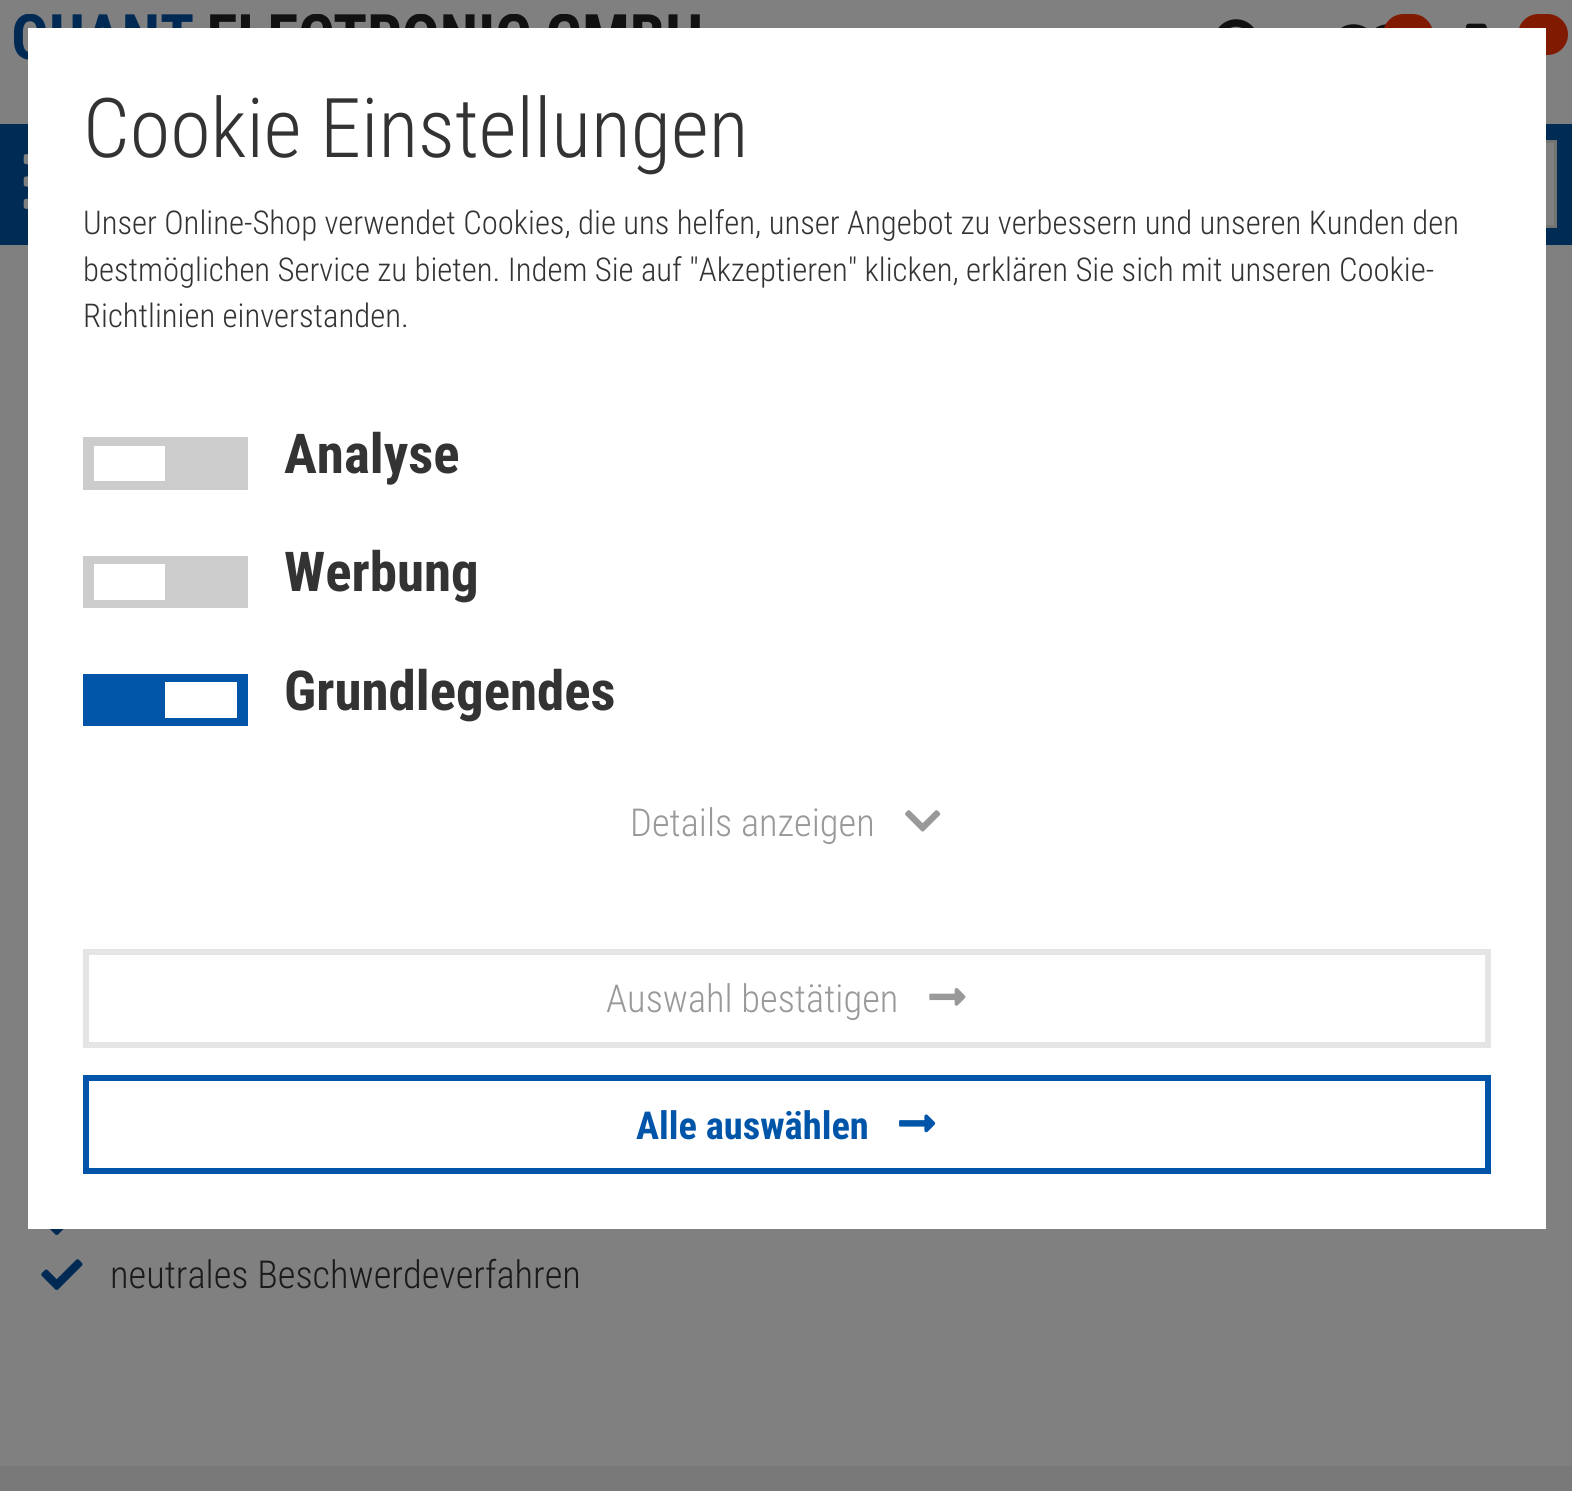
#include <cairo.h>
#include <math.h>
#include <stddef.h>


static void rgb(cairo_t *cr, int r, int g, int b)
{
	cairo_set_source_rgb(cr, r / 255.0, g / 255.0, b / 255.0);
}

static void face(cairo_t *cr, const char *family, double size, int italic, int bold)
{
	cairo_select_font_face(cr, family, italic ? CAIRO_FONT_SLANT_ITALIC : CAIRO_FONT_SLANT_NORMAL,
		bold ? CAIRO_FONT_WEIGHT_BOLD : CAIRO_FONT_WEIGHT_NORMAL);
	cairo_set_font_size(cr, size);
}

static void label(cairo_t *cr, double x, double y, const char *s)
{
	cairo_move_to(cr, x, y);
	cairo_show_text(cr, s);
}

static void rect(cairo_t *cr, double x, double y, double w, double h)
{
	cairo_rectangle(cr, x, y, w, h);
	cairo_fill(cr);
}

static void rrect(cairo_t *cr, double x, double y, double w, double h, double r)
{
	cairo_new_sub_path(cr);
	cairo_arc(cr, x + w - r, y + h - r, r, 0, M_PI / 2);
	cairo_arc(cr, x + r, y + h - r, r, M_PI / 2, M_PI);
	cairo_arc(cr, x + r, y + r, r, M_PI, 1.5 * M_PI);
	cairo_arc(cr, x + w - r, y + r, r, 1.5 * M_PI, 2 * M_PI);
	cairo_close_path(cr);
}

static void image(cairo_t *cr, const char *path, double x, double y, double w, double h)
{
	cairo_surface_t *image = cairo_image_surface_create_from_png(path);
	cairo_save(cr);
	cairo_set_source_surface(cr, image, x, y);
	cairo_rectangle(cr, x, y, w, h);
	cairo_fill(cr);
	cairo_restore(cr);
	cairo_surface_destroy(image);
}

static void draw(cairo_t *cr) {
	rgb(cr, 121, 121, 121);
	cairo_paint(cr);
	rgb(cr, 128, 128, 128);
	rect(cr, 0, 0, 1572, 124);
	image(cr, "image3.png", 14, 14, 686, 46);
	image(cr, "image5.png", 1341, 24, 45, 4);
	rgb(cr, 128, 26, 1);
	rrect(cr, 1383, 14, 50, 41, 20.5);
	cairo_fill(cr);
	rrect(cr, 1518, 14, 50, 41, 20.5);
	cairo_fill(cr);
	rgb(cr, 0, 43, 84);
	rect(cr, 0, 124, 1572, 121);
	rgb(cr, 128, 128, 128);
	rect(cr, 1546, 143, 8, 82);
	cairo_rectangle(cr, 111.5, 141.5, 1444, 85);
	rgb(cr, 115, 115, 115);
	cairo_set_line_width(cr, 3);
	cairo_stroke(cr);
	rgb(cr, 128, 128, 128);
	rect(cr, 0, 245, 1572, 1221);
	rgb(cr, 255, 255, 255);
	rect(cr, 28, 28, 1518, 1201);
	face(cr, "Roboto Condensed Light", 82.5, 0, 0);
	rgb(cr, 51, 51, 51);
	label(cr, 83, 157, "Cookie Einstellungen");
	face(cr, "Roboto Condensed Light", 32.75, 0, 0);
	label(cr, 83, 234, "Unser Online-Shop verwendet Cookies, die uns helfen, unser Angebot zu verbessern und unseren Kunden den");
	label(cr, 83, 281, "bestmöglichen Service zu bieten. Indem Sie auf \"Akzeptieren\" klicken, erklären Sie sich mit unseren Cookie-");
	label(cr, 83, 327, "Richtlinien einverstanden.");
	rgb(cr, 204, 204, 204);
	rect(cr, 83, 437, 165, 53);
	rgb(cr, 255, 255, 255);
	rect(cr, 94, 446, 71, 35);
	face(cr, "Roboto Condensed", 55, 0, 1);
	rgb(cr, 51, 51, 51);
	label(cr, 284, 473, "Analyse");
	rgb(cr, 204, 204, 204);
	rect(cr, 83, 556, 165, 52);
	rgb(cr, 255, 255, 255);
	rect(cr, 94, 564, 71, 36);
	rgb(cr, 51, 51, 51);
	label(cr, 284, 591, "Werbung");
	rgb(cr, 0, 85, 168);
	rect(cr, 83, 674, 165, 52);
	rgb(cr, 255, 255, 255);
	rect(cr, 165, 682, 72, 36);
	rgb(cr, 51, 51, 51);
	label(cr, 284, 710, "Grundlegendes");
	face(cr, "Roboto Condensed Light", 38.5, 0, 0);
	rgb(cr, 153, 153, 153);
	label(cr, 630, 836, "Details anzeigen");
	image(cr, "image0.png", 905, 810, 36, 22);
	cairo_rectangle(cr, 86, 952, 1402, 93);
	rgb(cr, 229, 229, 229);
	cairo_set_line_width(cr, 6);
	cairo_stroke(cr);
	rgb(cr, 153, 153, 153);
	label(cr, 606, 1012, "Auswahl bestätigen");
	image(cr, "image1.png", 929, 988, 37, 18);
	cairo_rectangle(cr, 86, 1078, 1402, 93);
	rgb(cr, 0, 85, 168);
	cairo_stroke(cr);
	face(cr, "Roboto Condensed", 38.5, 0, 1);
	label(cr, 636, 1139, "Alle auswählen");
	image(cr, "image2.png", 899, 1114, 37, 19);
	image(cr, "image4.png", 1218, 19, 36, 9);
	image(cr, "image6.png", 1466, 23, 21, 5);
	image(cr, "image7.png", 23, 154, 5, 55);
	image(cr, "image8.png", 50, 1229, 14, 6);
	image(cr, "image9.png", 41, 1259, 42, 31);
	face(cr, "Roboto Condensed Light", 38.5, 0, 0);
	rgb(cr, 26, 26, 26);
	label(cr, 110, 1288, "neutrales Beschwerdeverfahren");
}

int main(void) {
	cairo_surface_t *surface = cairo_image_surface_create(CAIRO_FORMAT_RGB24, 1572, 1491);
	cairo_t *cr = cairo_create(surface);
	cairo_font_options_t *options = cairo_font_options_create();
	cairo_font_options_set_hint_metrics(options, CAIRO_HINT_METRICS_OFF);
	cairo_font_options_set_hint_style(options, CAIRO_HINT_STYLE_NONE);
	cairo_set_font_options(cr, options);
	cairo_set_miter_limit(cr, 4);
	draw(cr);
	cairo_surface_write_to_png(surface, "render.png");
	cairo_font_options_destroy(options);
	cairo_destroy(cr);
	cairo_surface_destroy(surface);
	return 0;
}
